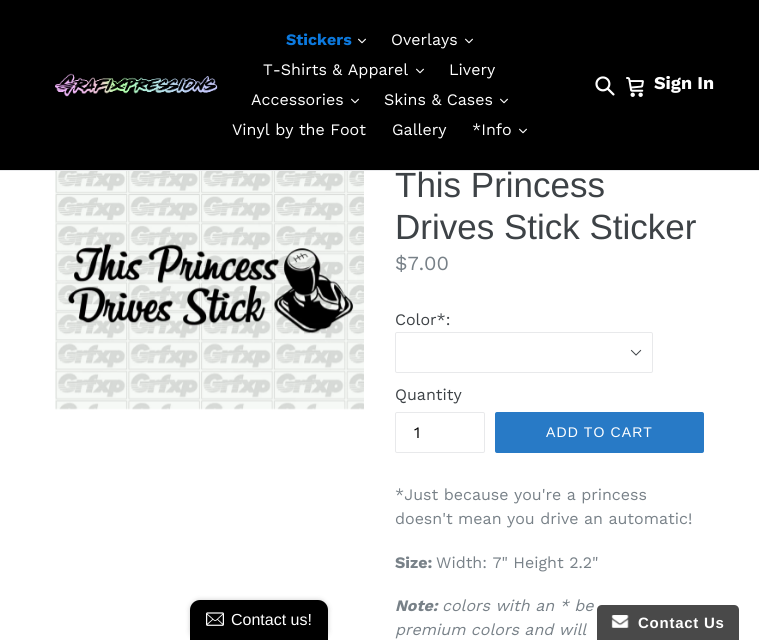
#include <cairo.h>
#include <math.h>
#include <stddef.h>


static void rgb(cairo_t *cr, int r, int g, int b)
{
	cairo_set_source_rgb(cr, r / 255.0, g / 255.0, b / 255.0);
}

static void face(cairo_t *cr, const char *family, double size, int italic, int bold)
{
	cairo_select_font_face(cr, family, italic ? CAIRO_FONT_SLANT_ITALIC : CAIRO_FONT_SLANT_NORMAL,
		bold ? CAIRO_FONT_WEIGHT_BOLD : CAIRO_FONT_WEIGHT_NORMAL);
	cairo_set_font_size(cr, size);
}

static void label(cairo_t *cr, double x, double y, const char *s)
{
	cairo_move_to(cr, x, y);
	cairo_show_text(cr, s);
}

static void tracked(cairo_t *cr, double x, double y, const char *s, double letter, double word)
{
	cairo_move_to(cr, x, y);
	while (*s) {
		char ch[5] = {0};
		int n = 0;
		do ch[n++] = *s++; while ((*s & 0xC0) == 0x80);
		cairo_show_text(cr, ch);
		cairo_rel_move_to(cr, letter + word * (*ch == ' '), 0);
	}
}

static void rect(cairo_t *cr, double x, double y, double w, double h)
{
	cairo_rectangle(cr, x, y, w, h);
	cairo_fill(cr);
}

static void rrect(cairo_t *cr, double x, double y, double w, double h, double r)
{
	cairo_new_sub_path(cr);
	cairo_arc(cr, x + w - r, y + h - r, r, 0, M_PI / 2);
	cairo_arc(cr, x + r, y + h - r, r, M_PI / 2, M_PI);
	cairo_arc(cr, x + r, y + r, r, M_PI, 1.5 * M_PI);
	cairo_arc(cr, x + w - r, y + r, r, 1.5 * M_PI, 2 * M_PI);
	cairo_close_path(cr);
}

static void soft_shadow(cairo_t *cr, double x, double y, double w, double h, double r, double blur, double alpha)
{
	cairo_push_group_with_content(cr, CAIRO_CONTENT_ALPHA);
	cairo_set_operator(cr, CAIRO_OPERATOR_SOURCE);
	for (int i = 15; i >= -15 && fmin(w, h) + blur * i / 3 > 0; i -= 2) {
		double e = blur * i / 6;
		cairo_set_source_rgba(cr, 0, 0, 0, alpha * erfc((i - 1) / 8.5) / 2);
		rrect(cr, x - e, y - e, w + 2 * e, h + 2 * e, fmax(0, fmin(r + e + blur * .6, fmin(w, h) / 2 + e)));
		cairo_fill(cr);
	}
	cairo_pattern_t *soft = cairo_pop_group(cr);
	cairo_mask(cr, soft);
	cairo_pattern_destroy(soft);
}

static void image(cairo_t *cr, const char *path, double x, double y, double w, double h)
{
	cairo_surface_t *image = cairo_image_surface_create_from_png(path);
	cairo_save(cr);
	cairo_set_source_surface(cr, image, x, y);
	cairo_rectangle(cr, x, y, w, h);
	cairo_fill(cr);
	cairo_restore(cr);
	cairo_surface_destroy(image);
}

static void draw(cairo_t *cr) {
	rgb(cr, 255, 255, 255);
	cairo_paint(cr);
	rgb(cr, 0, 0, 0);
	rect(cr, 0, 0, 759, 170);
	rgb(cr, 232, 233, 235);
	rect(cr, 0, 170, 759, 1);
	image(cr, "image0.png", 55, 73, 163, 24);
	face(cr, "Work Sans", 16, 0, 1);
	rgb(cr, 12, 121, 222);
	label(cr, 286, 45, "Stickers");
	image(cr, "image1.png", 358, 38, 8, 6);
	face(cr, "Work Sans", 16, 0, 0);
	rgb(cr, 255, 255, 255);
	label(cr, 391, 45, "Overlays");
	image(cr, "image1.png", 465, 38, 8, 6);
	label(cr, 263, 75, "T-Shirts & Apparel");
	image(cr, "image1.png", 416, 68, 8, 6);
	label(cr, 449, 75, "Livery");
	label(cr, 251, 105, "Accessories");
	image(cr, "image1.png", 351, 98, 8, 6);
	label(cr, 384, 105, "Skins & Cases");
	image(cr, "image1.png", 500, 98, 8, 6);
	label(cr, 232, 135, "Vinyl by the Foot");
	label(cr, 392, 135, "Gallery");
	label(cr, 472, 135, "*Info");
	image(cr, "image1.png", 519, 128, 8, 6);
	image(cr, "image2.png", 595, 76, 20, 20);
	image(cr, "image3.png", 626, 77, 18, 20);
	face(cr, "Work Sans", 18, 0, 1);
	label(cr, 654, 89, "Sign In");
	rgb(cr, 0, 0, 0);
	soft_shadow(cr, 190, 600, 138, 40, 10, 2.5, 0.2);
	rgb(cr, 0, 0, 0);
	cairo_new_path(cr);
	cairo_move_to(cr, 200, 600);
	cairo_line_to(cr, 318, 600);
	cairo_curve_to(cr, 323.5, 600, 328, 604.5, 328, 610);
	cairo_line_to(cr, 328, 640);
	cairo_line_to(cr, 190, 640);
	cairo_line_to(cr, 190, 610);
	cairo_curve_to(cr, 190, 604.5, 194.5, 600, 200, 600);
	cairo_close_path(cr);
	cairo_fill(cr);
	image(cr, "image4.png", 206, 612, 18, 14);
	face(cr, "Liberation Sans", 16, 0, 0);
	rgb(cr, 255, 255, 255);
	label(cr, 231, 625, "Contact us!");
	image(cr, "image5.png", 55, 171, 309, 239);
	face(cr, "Liberation Sans", 35, 0, 0);
	rgb(cr, 61, 66, 70);
	label(cr, 395, 197, "This Princess");
	label(cr, 395, 239, "Drives Stick Sticker");
	face(cr, "Work Sans", 20, 0, 0);
	rgb(cr, 120, 129, 136);
	label(cr, 395, 270, "$7.00");
	face(cr, "Work Sans", 16, 0, 0);
	rgb(cr, 61, 66, 70);
	label(cr, 395, 325, "Color*:");
	image(cr, "image6.png", 630, 349, 12, 7);
	rrect(cr, 395.5, 332.5, 257, 40, 1.5);
	rgb(cr, 232, 233, 235);
	cairo_set_line_width(cr, 1);
	cairo_stroke(cr);
	rgb(cr, 61, 66, 70);
	label(cr, 395, 400, "Quantity");
	rrect(cr, 395.5, 412.5, 89, 40, 1.5);
	rgb(cr, 232, 233, 235);
	cairo_stroke(cr);
	rgb(cr, 0, 0, 0);
	label(cr, 414, 438, "1");
	rgb(cr, 40, 122, 198);
	rrect(cr, 495, 412, 209, 41, 2);
	cairo_fill(cr);
	face(cr, "Liberation Sans", 14, 0, 0);
	rgb(cr, 255, 255, 255);
	tracked(cr, 546, 437, "ADD TO CART", 1.1, 0);
	face(cr, "Work Sans", 16, 0, 0);
	rgb(cr, 120, 129, 136);
	label(cr, 395, 500, "*Just because you're a princess");
	label(cr, 395, 524, "doesn't mean you drive an automatic!");
	face(cr, "Work Sans", 16, 0, 1);
	label(cr, 395, 568, "Size:");
	face(cr, "Work Sans", 16, 0, 0);
	label(cr, 436, 568, "Width: 7\" Height 2.2\"");
	face(cr, "Work Sans", 16, 1, 1);
	label(cr, 395, 611, "Note:");
	face(cr, "Work Sans", 16, 1, 0);
	label(cr, 442, 611, "colors with an * be");
	label(cr, 395, 635, "premium colors and will");
	rgb(cr, 73, 73, 73);
	cairo_new_path(cr);
	cairo_move_to(cr, 602, 605);
	cairo_line_to(cr, 734, 605);
	cairo_curve_to(cr, 737, 605, 739, 607, 739, 610);
	cairo_line_to(cr, 739, 640);
	cairo_line_to(cr, 597, 640);
	cairo_line_to(cr, 597, 610);
	cairo_curve_to(cr, 597, 607, 599, 605, 602, 605);
	cairo_close_path(cr);
	cairo_fill(cr);
	image(cr, "image7.png", 611, 615, 18, 13);
	face(cr, "Liberation Sans", 15, 0, 1);
	rgb(cr, 255, 255, 255);
	tracked(cr, 638, 628, "Contact Us", 0.75, 0);
}

int main(void) {
	cairo_surface_t *surface = cairo_image_surface_create(CAIRO_FORMAT_RGB24, 759, 640);
	cairo_t *cr = cairo_create(surface);
	cairo_font_options_t *options = cairo_font_options_create();
	cairo_font_options_set_hint_metrics(options, CAIRO_HINT_METRICS_OFF);
	cairo_font_options_set_hint_style(options, CAIRO_HINT_STYLE_NONE);
	cairo_set_font_options(cr, options);
	cairo_set_miter_limit(cr, 4);
	draw(cr);
	cairo_surface_write_to_png(surface, "render.png");
	cairo_font_options_destroy(options);
	cairo_destroy(cr);
	cairo_surface_destroy(surface);
	return 0;
}
